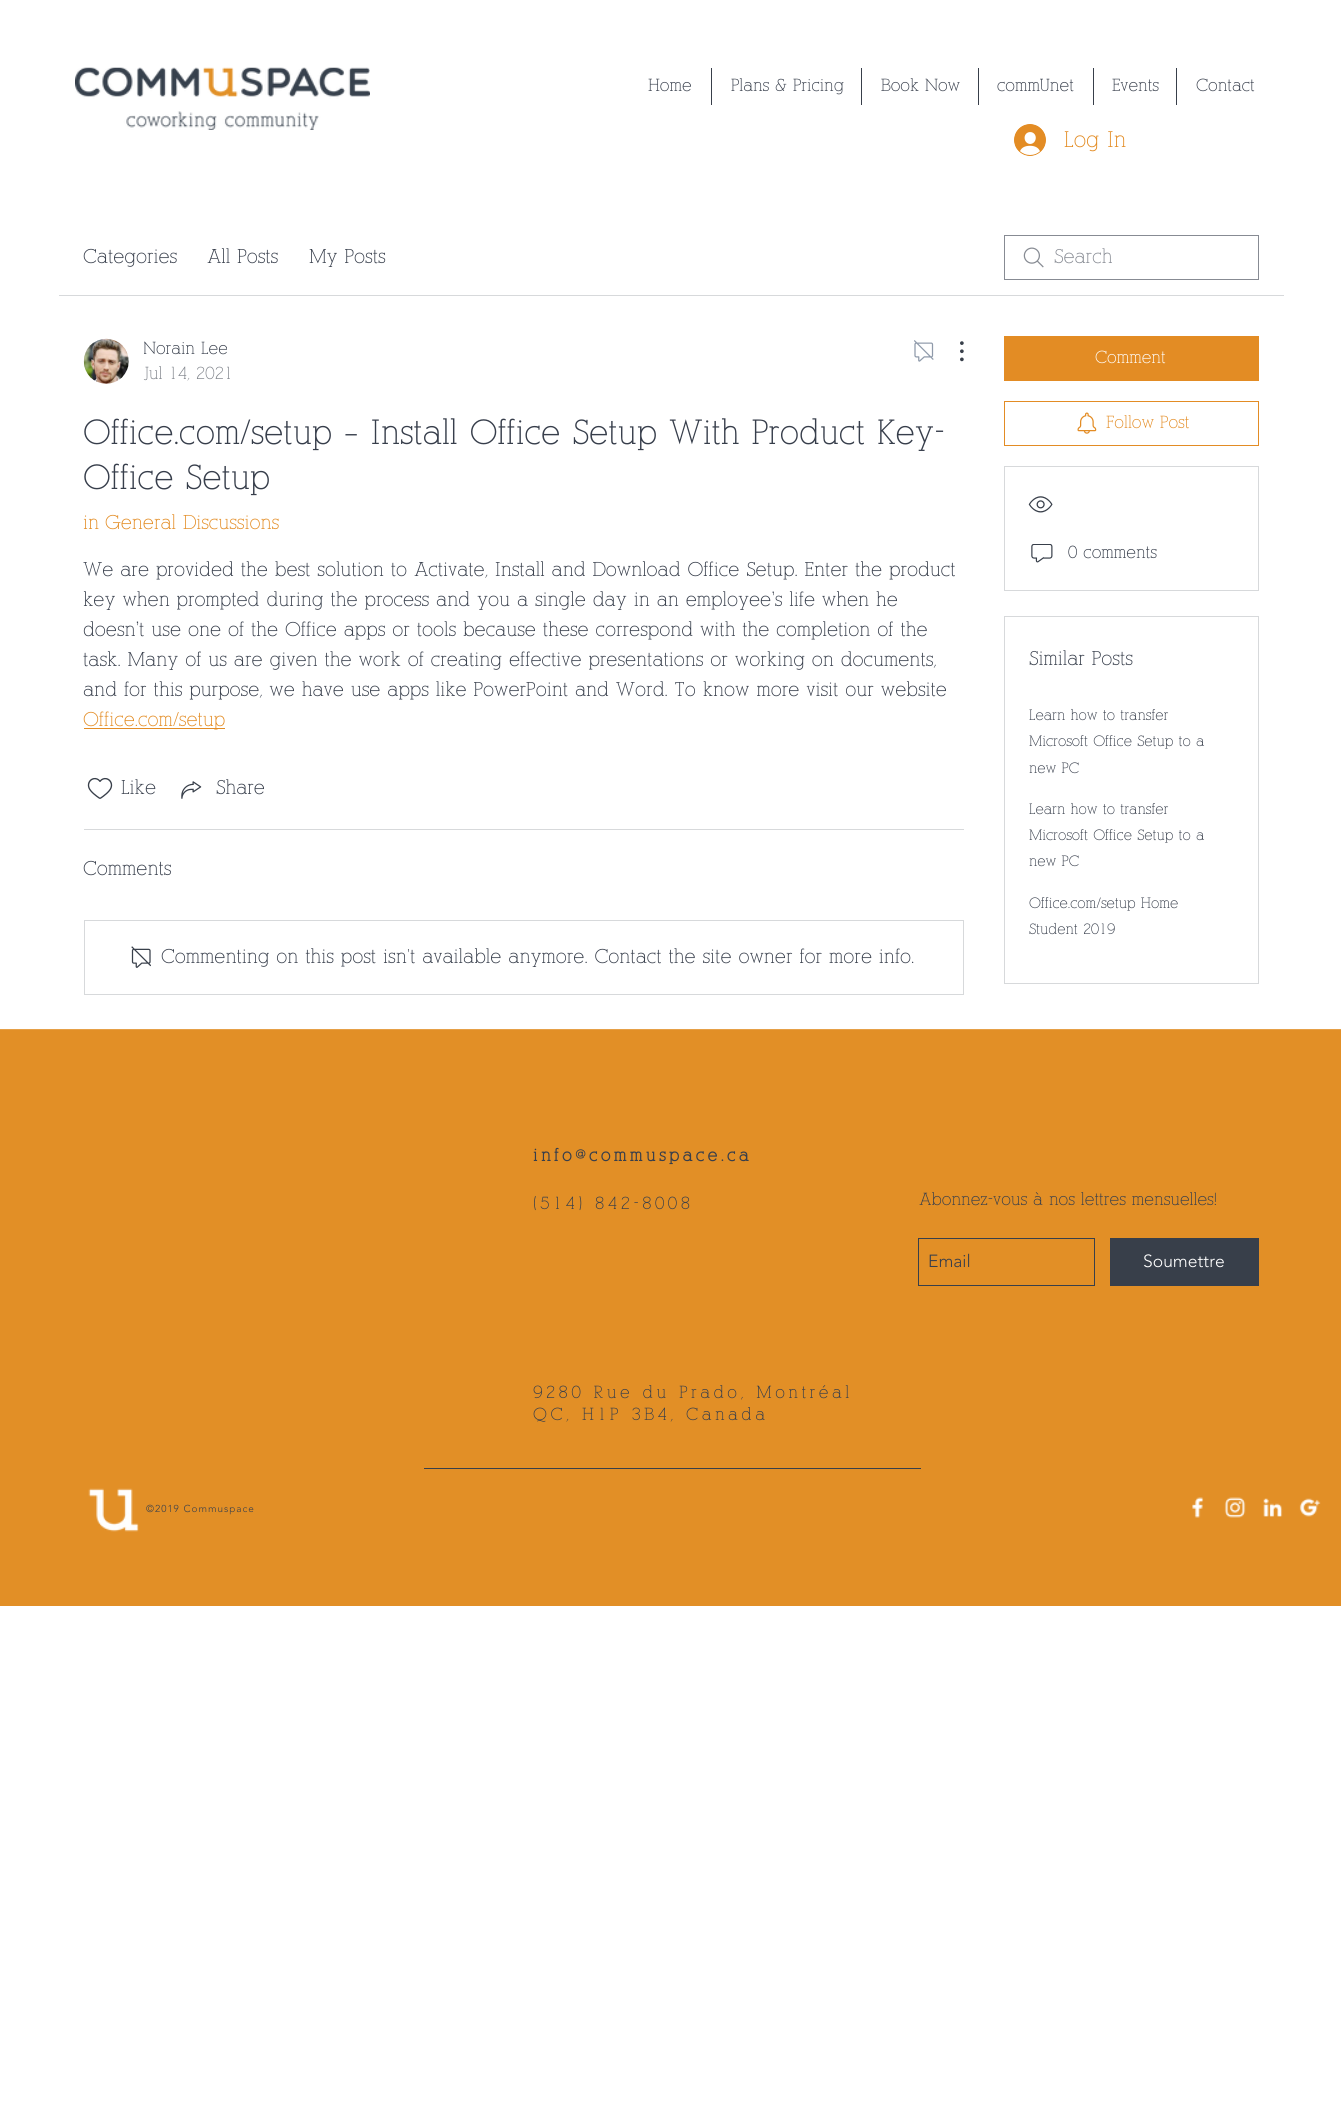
#include <cairo.h>
#include <math.h>
#include <stddef.h>


static void rgb(cairo_t *cr, int r, int g, int b)
{
	cairo_set_source_rgb(cr, r / 255.0, g / 255.0, b / 255.0);
}

static void face(cairo_t *cr, const char *family, double size, int italic, int bold)
{
	cairo_select_font_face(cr, family, italic ? CAIRO_FONT_SLANT_ITALIC : CAIRO_FONT_SLANT_NORMAL,
		bold ? CAIRO_FONT_WEIGHT_BOLD : CAIRO_FONT_WEIGHT_NORMAL);
	cairo_set_font_size(cr, size);
}

static void label(cairo_t *cr, double x, double y, const char *s)
{
	cairo_move_to(cr, x, y);
	cairo_show_text(cr, s);
}

static void tracked(cairo_t *cr, double x, double y, const char *s, double letter, double word)
{
	cairo_move_to(cr, x, y);
	while (*s) {
		char ch[5] = {0};
		int n = 0;
		do ch[n++] = *s++; while ((*s & 0xC0) == 0x80);
		cairo_show_text(cr, ch);
		cairo_rel_move_to(cr, letter + word * (*ch == ' '), 0);
	}
}

static void rect(cairo_t *cr, double x, double y, double w, double h)
{
	cairo_rectangle(cr, x, y, w, h);
	cairo_fill(cr);
}

static void image(cairo_t *cr, const char *path, double x, double y, double w, double h)
{
	cairo_surface_t *image = cairo_image_surface_create_from_png(path);
	cairo_save(cr);
	cairo_set_source_surface(cr, image, x, y);
	cairo_rectangle(cr, x, y, w, h);
	cairo_fill(cr);
	cairo_restore(cr);
	cairo_surface_destroy(image);
}

static void draw(cairo_t *cr) {
	rgb(cr, 255, 255, 255);
	cairo_paint(cr);
	image(cr, "image0.png", 75, 67, 295, 63);
	face(cr, "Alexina", 17.5, 0, 0);
	rgb(cr, 55, 62, 75);
	label(cr, 648, 91, "Home");
	rgb(cr, 56, 63, 74);
	rect(cr, 711, 68, 1, 37);
	rgb(cr, 55, 62, 75);
	label(cr, 731, 91, "Plans & Pricing");
	rgb(cr, 56, 63, 74);
	rect(cr, 861, 68, 1, 37);
	rgb(cr, 55, 62, 75);
	label(cr, 881, 91, "Book Now");
	rgb(cr, 56, 63, 74);
	rect(cr, 978, 68, 1, 37);
	rgb(cr, 55, 62, 75);
	label(cr, 997, 91, "commUnet");
	rgb(cr, 56, 63, 74);
	rect(cr, 1093, 68, 1, 37);
	rgb(cr, 55, 62, 75);
	label(cr, 1112, 91, "Events");
	rgb(cr, 56, 63, 74);
	rect(cr, 1176, 68, 1, 37);
	rgb(cr, 55, 62, 75);
	label(cr, 1196, 91, "Contact");
	image(cr, "image1.png", 1014, 124, 32, 32);
	face(cr, "Alexina", 22.5, 0, 0);
	rgb(cr, 227, 140, 36);
	label(cr, 1064, 147, "Log In");
	rgb(cr, 215, 217, 219);
	rect(cr, 59, 295, 1225, 1);
	face(cr, "Alexina", 20, 0, 0);
	rgb(cr, 55, 62, 75);
	label(cr, 83, 263, "Categories");
	label(cr, 207, 263, "All Posts");
	label(cr, 309, 263, "My Posts");
	image(cr, "image2.png", 1023, 247, 21, 21);
	cairo_rectangle(cr, 1004.5, 235.5, 254, 44);
	rgb(cr, 135, 139, 147);
	cairo_set_line_width(cr, 1);
	cairo_stroke(cr);
	label(cr, 1054, 263, "Search");
	image(cr, "image3.png", 83, 338, 46, 46);
	cairo_save(cr);
	cairo_rectangle(cr, 144, 336, 84, 25);
	cairo_clip(cr);
	face(cr, "Alexina", 17.5, 0, 0);
	rgb(cr, 55, 62, 75);
	label(cr, 143, 354, "Norain Lee");
	cairo_restore(cr);
	face(cr, "Alexina", 17.5, 0, 0);
	rgb(cr, 128, 132, 139);
	label(cr, 143, 379, "Jul 14, 2021");
	image(cr, "image4.png", 914, 340, 20, 22);
	image(cr, "image5.png", 960, 341, 4, 21);
	face(cr, "Alexina", 35, 0, 0);
	rgb(cr, 55, 62, 75);
	label(cr, 83, 444, "Office.com/setup – Install Office Setup With Product Key-");
	label(cr, 83, 489, "Office Setup");
	face(cr, "Alexina", 20, 0, 0);
	rgb(cr, 227, 140, 36);
	label(cr, 83, 529, "in");
	label(cr, 105, 529, "General Discussions");
	rgb(cr, 55, 62, 75);
	label(cr, 83, 576, "We are provided the best solution to Activate, Install and Download Office Setup. Enter the product");
	label(cr, 83, 606, "key when prompted during the process and you a single day in an employee’s life when he");
	label(cr, 83, 636, "doesn’t use one of the Office apps or tools because these correspond with the completion of the");
	label(cr, 83, 666, "task. Many of us are given the work of creating effective presentations or working on documents,");
	label(cr, 83, 696, "and for this purpose, we have use apps like PowerPoint and Word. To know more visit our website");
	rgb(cr, 227, 140, 36);
	rect(cr, 84, 728, 141, 1);
	label(cr, 83, 726, "Office.com/setup");
	image(cr, "image6.png", 87, 777, 26, 22);
	rgb(cr, 55, 62, 75);
	label(cr, 121, 794, "Like");
	image(cr, "image7.png", 181, 781, 21, 18);
	label(cr, 216, 794, "Share");
	rgb(cr, 215, 217, 219);
	rect(cr, 84, 829, 880, 1);
	rgb(cr, 55, 62, 75);
	label(cr, 83, 875, "Comments");
	cairo_rectangle(cr, 84.5, 920.5, 879, 74);
	rgb(cr, 215, 217, 219);
	cairo_stroke(cr);
	image(cr, "image8.png", 131, 946, 20, 22);
	rgb(cr, 55, 62, 75);
	label(cr, 161, 963, "Commenting on this post isn't available anymore. Contact the site owner for more info.");
	rgb(cr, 227, 140, 36);
	rect(cr, 1004, 336, 255, 45);
	face(cr, "Alexina", 17.5, 0, 0);
	rgb(cr, 255, 255, 255);
	label(cr, 1095, 363, "Comment");
	cairo_rectangle(cr, 1004.5, 401.5, 254, 44);
	rgb(cr, 227, 140, 36);
	cairo_stroke(cr);
	image(cr, "image9.png", 1077, 412, 20, 22);
	label(cr, 1106, 428, "Follow Post");
	cairo_rectangle(cr, 1004.5, 466.5, 254, 124);
	rgb(cr, 215, 217, 219);
	cairo_stroke(cr);
	image(cr, "image10.png", 1028, 496, 25, 17);
	image(cr, "image11.png", 1031, 544, 22, 19);
	rgb(cr, 55, 62, 75);
	label(cr, 1068, 558, "0 comments");
	cairo_rectangle(cr, 1004.5, 616.5, 254, 367);
	rgb(cr, 215, 217, 219);
	cairo_stroke(cr);
	face(cr, "Alexina", 20, 0, 0);
	rgb(cr, 55, 62, 75);
	label(cr, 1029, 665, "Similar Posts");
	face(cr, "Alexina", 15, 0, 0);
	label(cr, 1029, 720, "Learn how to transfer");
	label(cr, 1029, 746, "Microsoft Office Setup to a");
	label(cr, 1029, 773, "new PC");
	label(cr, 1029, 814, "Learn how to transfer");
	label(cr, 1029, 840, "Microsoft Office Setup to a");
	label(cr, 1029, 866, "new PC");
	label(cr, 1029, 908, "Office.com/setup Home");
	label(cr, 1029, 934, "Student 2019");
	rgb(cr, 226, 143, 38);
	rect(cr, 0, 1030, 1341, 576);
	rgb(cr, 230, 160, 71);
	rect(cr, 0, 1029, 1341, 1);
	face(cr, "Alexina", 17.5, 0, 1);
	rgb(cr, 55, 62, 75);
	tracked(cr, 533, 1161, "info@commuspace.ca", 3.5, 0);
	face(cr, "Alexina", 17.5, 0, 0);
	tracked(cr, 533, 1209, "(514) 842-8008", 3.5, 0);
	label(cr, 919, 1205, "Abonnez-vous à nos lettres mensuelles!");
	cairo_rectangle(cr, 918.5, 1238.5, 176, 47);
	rgb(cr, 56, 63, 74);
	cairo_stroke(cr);
	face(cr, "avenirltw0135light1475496 Light", 17.5, 0, 0);
	rgb(cr, 55, 62, 75);
	label(cr, 928, 1267, "Email");
	rgb(cr, 56, 63, 74);
	rect(cr, 1110, 1238, 149, 48);
	rgb(cr, 255, 255, 255);
	label(cr, 1143, 1267, "Soumettre");
	face(cr, "Alexina", 17.5, 0, 0);
	rgb(cr, 55, 62, 75);
	tracked(cr, 533, 1398, "9280 Rue du Prado, Montréal", 3.5, 0);
	tracked(cr, 533, 1420, "QC, H1P 3B4, Canada", 3.5, 0);
	rgb(cr, 56, 63, 74);
	rect(cr, 424, 1468, 497, 1);
	image(cr, "image12.png", 88, 1488, 51, 44);
	face(cr, "avenirltw0135light1475496 Light", 10, 0, 0);
	rgb(cr, 55, 62, 75);
	tracked(cr, 146, 1512, "©2019 Commuspace", 1, 0);
	image(cr, "image13.png", 1192, 1497, 12, 21);
	image(cr, "image14.png", 1224, 1497, 22, 21);
	image(cr, "image15.png", 1263, 1498, 20, 19);
	image(cr, "image16.png", 1299, 1498, 22, 19);
}

int main(void) {
	cairo_surface_t *surface = cairo_image_surface_create(CAIRO_FORMAT_RGB24, 1341, 2106);
	cairo_t *cr = cairo_create(surface);
	cairo_font_options_t *options = cairo_font_options_create();
	cairo_font_options_set_hint_metrics(options, CAIRO_HINT_METRICS_OFF);
	cairo_font_options_set_hint_style(options, CAIRO_HINT_STYLE_NONE);
	cairo_set_font_options(cr, options);
	cairo_set_miter_limit(cr, 4);
	draw(cr);
	cairo_surface_write_to_png(surface, "render.png");
	cairo_font_options_destroy(options);
	cairo_destroy(cr);
	cairo_surface_destroy(surface);
	return 0;
}
